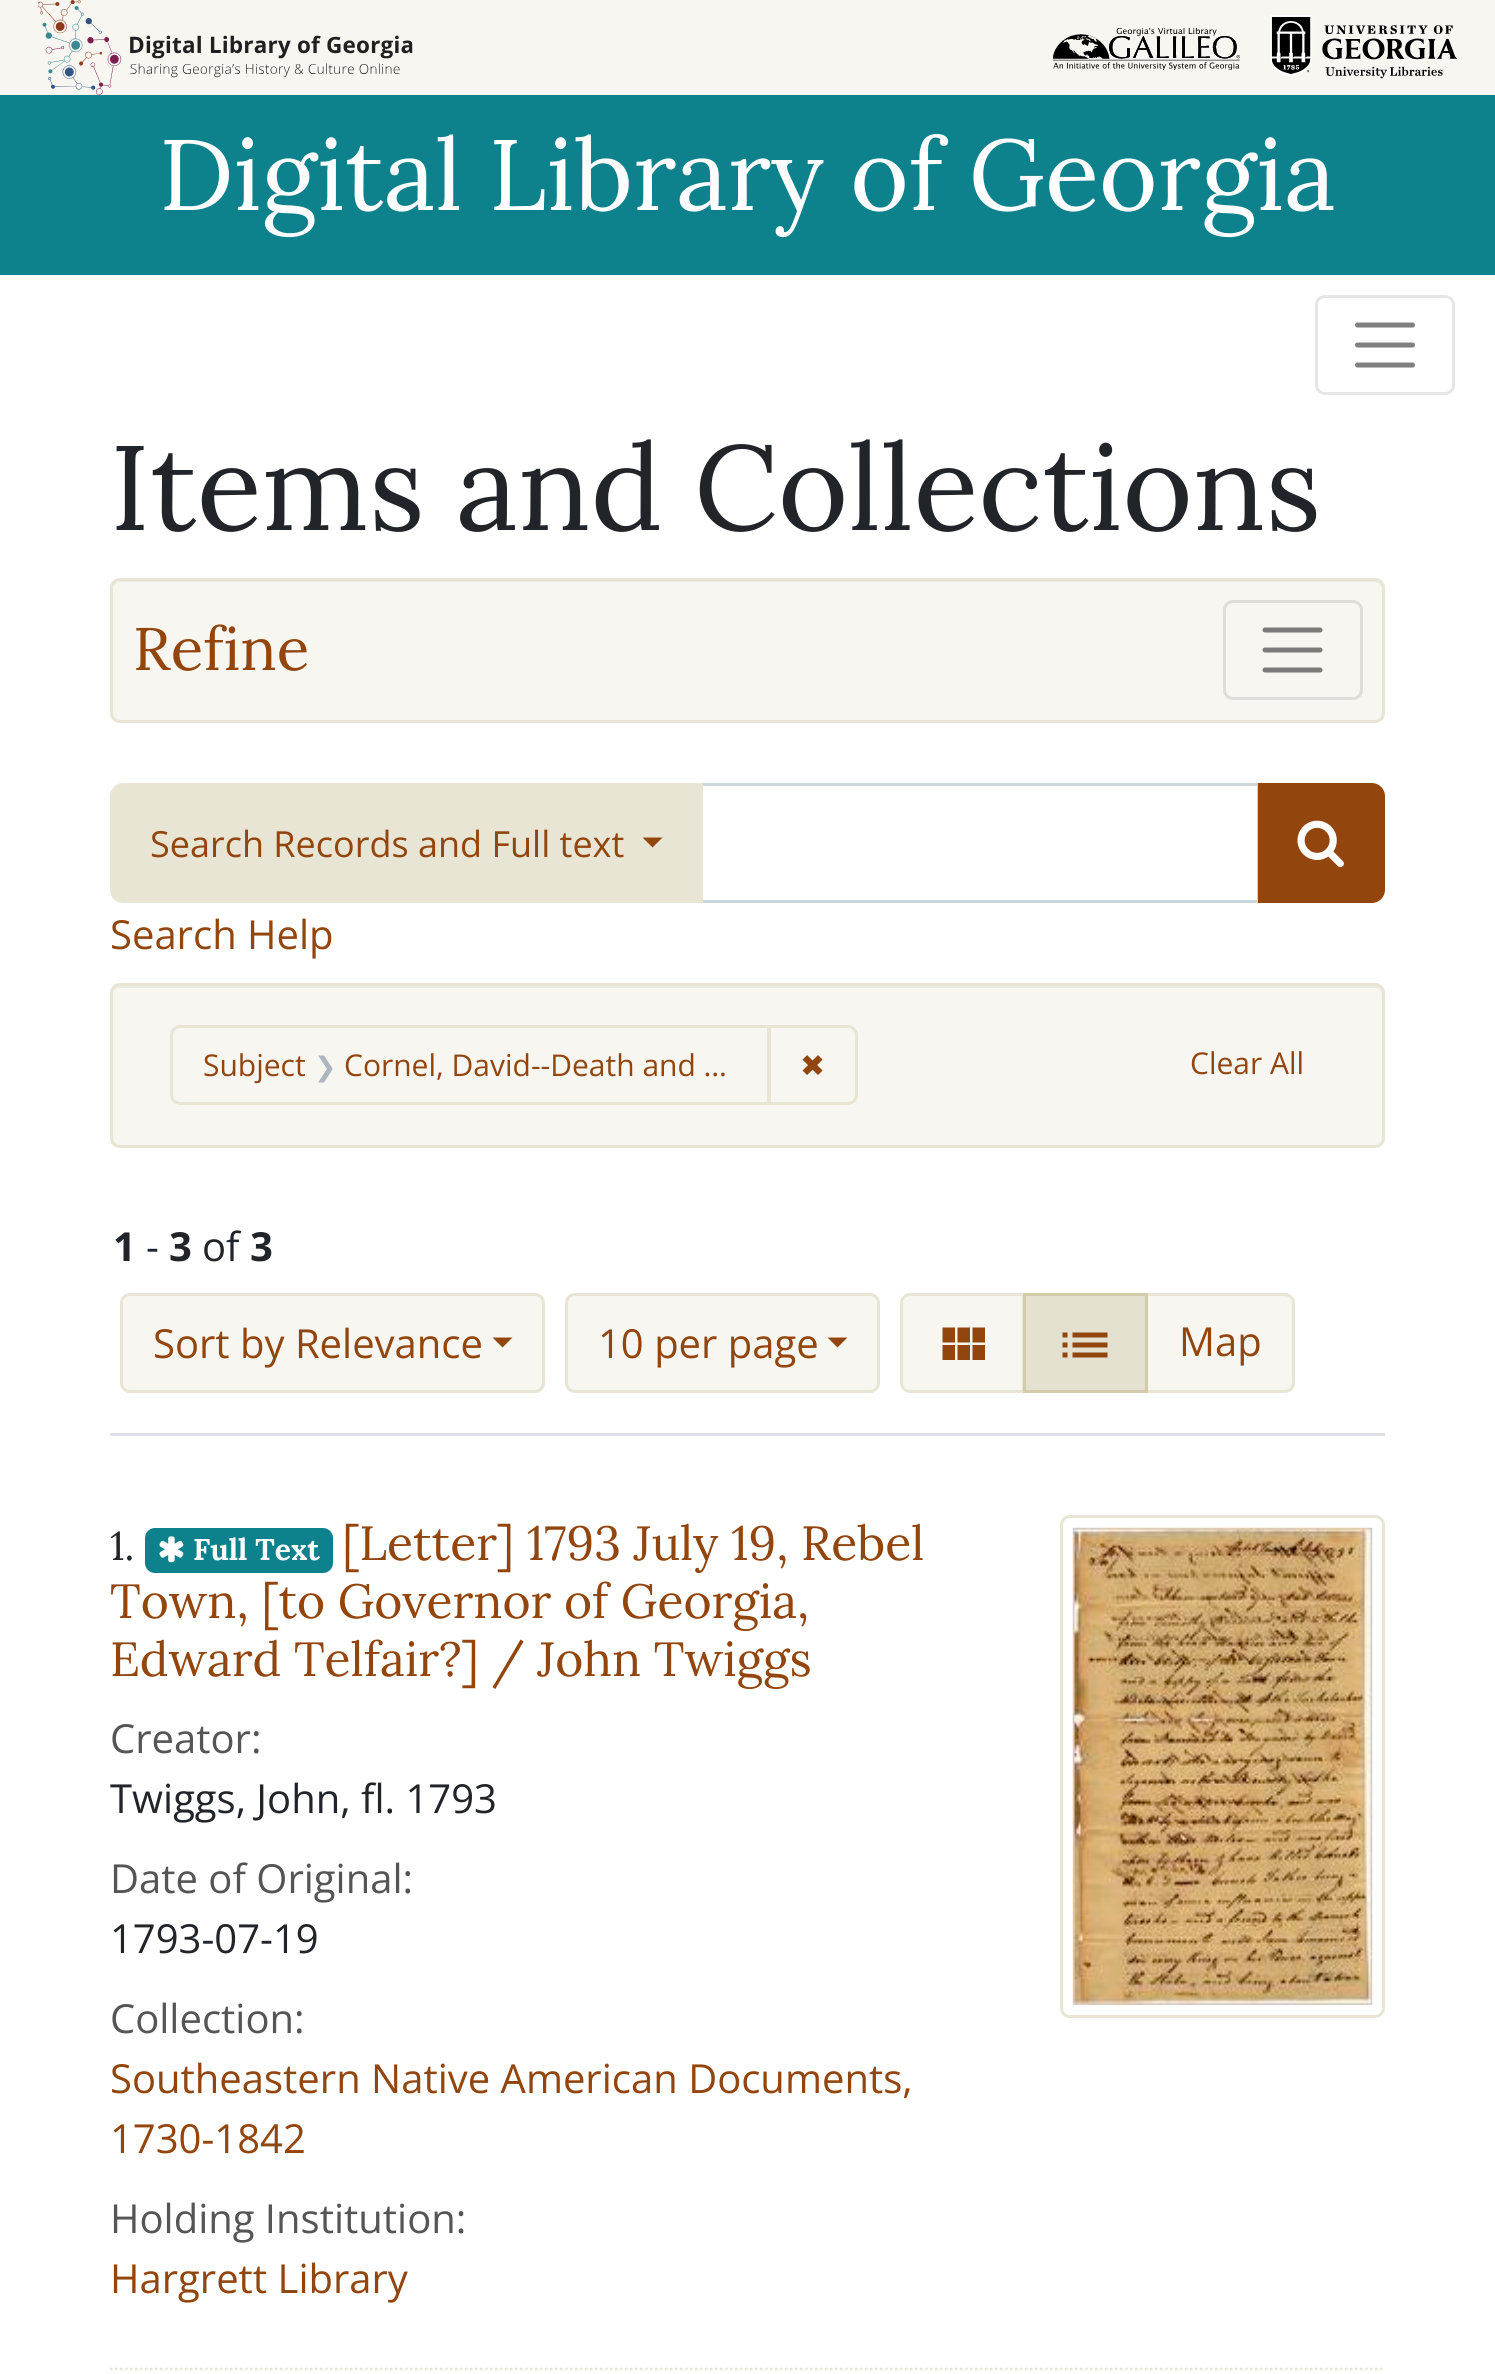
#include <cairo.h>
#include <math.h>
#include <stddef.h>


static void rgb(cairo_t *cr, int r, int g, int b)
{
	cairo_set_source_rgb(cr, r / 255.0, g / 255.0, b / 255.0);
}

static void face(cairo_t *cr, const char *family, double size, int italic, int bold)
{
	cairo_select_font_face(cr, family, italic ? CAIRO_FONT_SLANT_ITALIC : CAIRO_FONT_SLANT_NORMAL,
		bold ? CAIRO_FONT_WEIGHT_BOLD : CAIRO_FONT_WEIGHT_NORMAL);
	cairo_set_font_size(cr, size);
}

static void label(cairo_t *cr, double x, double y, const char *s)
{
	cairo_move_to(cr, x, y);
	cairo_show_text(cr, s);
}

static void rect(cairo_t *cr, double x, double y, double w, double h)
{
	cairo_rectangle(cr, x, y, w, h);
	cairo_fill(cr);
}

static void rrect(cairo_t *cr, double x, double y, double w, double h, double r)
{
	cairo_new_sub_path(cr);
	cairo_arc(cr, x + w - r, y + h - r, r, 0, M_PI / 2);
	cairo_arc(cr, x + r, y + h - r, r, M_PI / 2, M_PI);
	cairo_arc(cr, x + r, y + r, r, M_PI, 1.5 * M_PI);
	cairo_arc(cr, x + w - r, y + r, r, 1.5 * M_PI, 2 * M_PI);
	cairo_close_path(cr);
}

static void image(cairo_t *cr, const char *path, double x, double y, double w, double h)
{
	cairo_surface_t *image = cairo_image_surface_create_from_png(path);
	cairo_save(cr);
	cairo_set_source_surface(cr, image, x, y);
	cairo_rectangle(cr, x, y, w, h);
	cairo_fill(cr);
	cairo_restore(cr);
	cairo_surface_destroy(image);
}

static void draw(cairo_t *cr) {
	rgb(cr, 255, 255, 255);
	cairo_paint(cr);
	rgb(cr, 247, 246, 241);
	rect(cr, 0, 0, 1495, 95);
	image(cr, "image0.png", 38, 0, 375, 95);
	image(cr, "image1.png", 1053, 28, 187, 42);
	image(cr, "image2.png", 1270, 15, 187, 64);
	rgb(cr, 13, 130, 140);
	rect(cr, 0, 95, 1495, 180);
	face(cr, "Lora", 100, 0, 0);
	rgb(cr, 255, 255, 255);
	label(cr, 159, 210, "Digital Library of Georgia");
	rrect(cr, 1316.5, 296.5, 137, 97, 8.5);
	rgb(cr, 230, 230, 230);
	cairo_set_line_width(cr, 3);
	cairo_stroke(cr);
	cairo_new_path(cr);
	cairo_move_to(cr, 1357.5, 325);
	cairo_line_to(cr, 1412.5, 325);
	cairo_move_to(cr, 1357.5, 345);
	cairo_line_to(cr, 1412.5, 345);
	cairo_move_to(cr, 1357.5, 365);
	cairo_line_to(cr, 1412.5, 365);
	rgb(cr, 128, 128, 128);
	cairo_set_line_width(cr, 5);
	cairo_set_line_cap(cr, CAIRO_LINE_CAP_ROUND);
	cairo_stroke(cr);
	face(cr, "Lora", 120, 0, 0);
	rgb(cr, 33, 37, 41);
	label(cr, 110, 530, "Items and Collections");
	rgb(cr, 247, 246, 241);
	rrect(cr, 110, 578, 1275, 145, 10);
	cairo_fill(cr);
	rgb(cr, 235, 234, 229);
	cairo_new_path(cr);
	cairo_move_to(cr, 120, 582);
	cairo_line_to(cr, 1375, 582);
	cairo_curve_to(cr, 1379, 582, 1382, 586, 1382, 590);
	cairo_line_to(cr, 1382, 716);
	cairo_curve_to(cr, 1383, 715, 1383, 713, 1383, 712);
	cairo_line_to(cr, 1383, 588);
	cairo_curve_to(cr, 1383, 584, 1379, 580, 1375, 580);
	cairo_line_to(cr, 121, 580);
	cairo_curve_to(cr, 117, 580, 114, 583, 113, 586);
	cairo_curve_to(cr, 115, 584, 117, 582, 120, 582);
	cairo_close_path(cr);
	cairo_fill(cr);
	rrect(cr, 111.5, 579.5, 1272, 142, 8.5);
	rgb(cr, 232, 229, 212);
	cairo_set_line_width(cr, 3);
	cairo_set_line_cap(cr, CAIRO_LINE_CAP_BUTT);
	cairo_stroke(cr);
	face(cr, "Lora", 60, 0, 0);
	rgb(cr, 147, 69, 14);
	label(cr, 133, 670, "Refine");
	rrect(cr, 1224.5, 601.5, 137, 97, 8.5);
	rgb(cr, 222, 221, 217);
	cairo_stroke(cr);
	cairo_new_path(cr);
	cairo_move_to(cr, 1265, 630);
	cairo_line_to(cr, 1320, 630);
	cairo_move_to(cr, 1265, 650);
	cairo_line_to(cr, 1320, 650);
	cairo_move_to(cr, 1265, 670);
	cairo_line_to(cr, 1320, 670);
	rgb(cr, 124, 123, 121);
	cairo_set_line_width(cr, 5);
	cairo_set_line_cap(cr, CAIRO_LINE_CAP_ROUND);
	cairo_stroke(cr);
	cairo_rectangle(cr, 701.5, 784.5, 557, 117);
	rgb(cr, 206, 212, 218);
	cairo_set_line_width(cr, 3);
	cairo_set_line_cap(cr, CAIRO_LINE_CAP_BUTT);
	cairo_stroke(cr);
	rgb(cr, 232, 229, 212);
	cairo_new_path(cr);
	cairo_move_to(cr, 123, 783);
	cairo_line_to(cr, 703, 783);
	cairo_line_to(cr, 703, 903);
	cairo_line_to(cr, 123, 903);
	cairo_curve_to(cr, 116, 903, 110, 897, 110, 890);
	cairo_line_to(cr, 110, 796);
	cairo_curve_to(cr, 110, 789, 116, 783, 123, 783);
	cairo_close_path(cr);
	cairo_fill(cr);
	face(cr, "Open Sans", 36, 0, 0);
	rgb(cr, 147, 69, 14);
	label(cr, 150, 857, "Search Records and Full text");
	cairo_new_path(cr);
	cairo_move_to(cr, 642.5, 837.5);
	cairo_line_to(cr, 662.5, 837.5);
	cairo_line_to(cr, 652.5, 847.5);
	cairo_close_path(cr);
	cairo_fill(cr);
	cairo_new_path(cr);
	cairo_move_to(cr, 1258, 783);
	cairo_line_to(cr, 1372, 783);
	cairo_curve_to(cr, 1379, 783, 1385, 789, 1385, 796);
	cairo_line_to(cr, 1385, 890);
	cairo_curve_to(cr, 1385, 897, 1379, 903, 1372, 903);
	cairo_line_to(cr, 1258, 903);
	cairo_close_path(cr);
	cairo_fill(cr);
	image(cr, "image3.png", 1297, 820, 47, 48);
	face(cr, "Open Sans", 40, 0, 0);
	label(cr, 110, 949, "Search Help");
	rgb(cr, 247, 246, 241);
	rrect(cr, 110, 983, 1275, 165, 10);
	cairo_fill(cr);
	rgb(cr, 235, 234, 229);
	cairo_new_path(cr);
	cairo_move_to(cr, 120, 988);
	cairo_line_to(cr, 1375, 988);
	cairo_curve_to(cr, 1379, 988, 1382, 991, 1382, 995);
	cairo_line_to(cr, 1382, 1141);
	cairo_curve_to(cr, 1383, 1140, 1383, 1138, 1383, 1137);
	cairo_line_to(cr, 1383, 993);
	cairo_curve_to(cr, 1383, 989, 1379, 985, 1375, 985);
	cairo_line_to(cr, 121, 985);
	cairo_curve_to(cr, 117, 985, 114, 988, 113, 991);
	cairo_curve_to(cr, 115, 989, 117, 988, 120, 988);
	cairo_close_path(cr);
	cairo_fill(cr);
	rrect(cr, 111.5, 984.5, 1272, 162, 8.5);
	rgb(cr, 232, 229, 212);
	cairo_stroke(cr);
	cairo_new_path(cr);
	cairo_move_to(cr, 180, 1026.5);
	cairo_line_to(cr, 768.5, 1026.5);
	cairo_line_to(cr, 768.5, 1103.5);
	cairo_line_to(cr, 180, 1103.5);
	cairo_curve_to(cr, 175.5, 1103.5, 171.5, 1099.5, 171.5, 1095);
	cairo_line_to(cr, 171.5, 1035);
	cairo_curve_to(cr, 171.5, 1030.5, 175.5, 1026.5, 180, 1026.5);
	cairo_close_path(cr);
	cairo_stroke(cr);
	face(cr, "Open Sans", 30, 0, 0);
	rgb(cr, 147, 69, 14);
	label(cr, 203, 1076, "Subject");
	face(cr, "DejaVu Sans", 27, 0, 0);
	rgb(cr, 173, 181, 189);
	label(cr, 314, 1076, "❯");
	face(cr, "Open Sans", 30, 0, 0);
	rgb(cr, 147, 69, 14);
	label(cr, 344, 1076, "Cornel, David--Death and …");
	cairo_new_path(cr);
	cairo_move_to(cr, 769.5, 1026.5);
	cairo_line_to(cr, 848, 1026.5);
	cairo_curve_to(cr, 852.5, 1026.5, 856.5, 1030.5, 856.5, 1035);
	cairo_line_to(cr, 856.5, 1095);
	cairo_curve_to(cr, 856.5, 1099.5, 852.5, 1103.5, 848, 1103.5);
	cairo_line_to(cr, 769.5, 1103.5);
	cairo_close_path(cr);
	rgb(cr, 232, 229, 212);
	cairo_stroke(cr);
	face(cr, "DejaVu Sans", 30, 0, 0);
	rgb(cr, 147, 69, 14);
	label(cr, 800, 1076, "✖");
	face(cr, "Open Sans", 30, 0, 0);
	label(cr, 1190, 1074, "Clear All");
	rgb(cr, 222, 226, 230);
	rect(cr, 110, 1433, 1275, 3);
	face(cr, "Open Sans", 40, 0, 1);
	rgb(cr, 33, 37, 41);
	label(cr, 113, 1261, "1");
	face(cr, "Open Sans", 40, 0, 0);
	label(cr, 146, 1261, "-");
	face(cr, "Open Sans", 40, 0, 1);
	label(cr, 169, 1261, "3");
	face(cr, "Open Sans", 40, 0, 0);
	label(cr, 202, 1261, "of");
	face(cr, "Open Sans", 40, 0, 1);
	label(cr, 250, 1261, "3");
	rgb(cr, 247, 246, 241);
	rrect(cr, 121.5, 1294.5, 422, 97, 8.5);
	cairo_fill_preserve(cr);
	rgb(cr, 232, 229, 212);
	cairo_stroke(cr);
	face(cr, "Open Sans", 40, 0, 0);
	rgb(cr, 147, 69, 14);
	label(cr, 153, 1358, "Sort by Relevance");
	cairo_new_path(cr);
	cairo_move_to(cr, 492.5, 1337.5);
	cairo_line_to(cr, 512.5, 1337.5);
	cairo_line_to(cr, 502.5, 1347.5);
	cairo_close_path(cr);
	cairo_fill(cr);
	rgb(cr, 247, 246, 241);
	rrect(cr, 566.5, 1294.5, 312, 97, 8.5);
	cairo_fill_preserve(cr);
	rgb(cr, 232, 229, 212);
	cairo_stroke(cr);
	rgb(cr, 147, 69, 14);
	label(cr, 598, 1358, "10 per page");
	cairo_new_path(cr);
	cairo_move_to(cr, 827.5, 1337.5);
	cairo_line_to(cr, 847.5, 1337.5);
	cairo_line_to(cr, 837.5, 1347.5);
	cairo_close_path(cr);
	cairo_fill(cr);
	rgb(cr, 247, 246, 241);
	cairo_new_path(cr);
	cairo_move_to(cr, 910, 1294.5);
	cairo_line_to(cr, 1023.5, 1294.5);
	cairo_line_to(cr, 1023.5, 1391.5);
	cairo_line_to(cr, 910, 1391.5);
	cairo_curve_to(cr, 905.5, 1391.5, 901.5, 1387.5, 901.5, 1383);
	cairo_line_to(cr, 901.5, 1303);
	cairo_curve_to(cr, 901.5, 1298.5, 905.5, 1294.5, 910, 1294.5);
	cairo_close_path(cr);
	cairo_fill_preserve(cr);
	rgb(cr, 232, 229, 212);
	cairo_stroke(cr);
	image(cr, "image4.png", 942, 1327, 43, 33);
	rgb(cr, 247, 246, 241);
	cairo_new_path(cr);
	cairo_move_to(cr, 1146.5, 1294.5);
	cairo_line_to(cr, 1285, 1294.5);
	cairo_curve_to(cr, 1289.5, 1294.5, 1293.5, 1298.5, 1293.5, 1303);
	cairo_line_to(cr, 1293.5, 1383);
	cairo_curve_to(cr, 1293.5, 1387.5, 1289.5, 1391.5, 1285, 1391.5);
	cairo_line_to(cr, 1146.5, 1391.5);
	cairo_close_path(cr);
	cairo_fill_preserve(cr);
	rgb(cr, 232, 229, 212);
	cairo_stroke(cr);
	rgb(cr, 228, 225, 209);
	cairo_rectangle(cr, 1024.5, 1294.5, 122, 97);
	cairo_fill_preserve(cr);
	rgb(cr, 210, 204, 170);
	cairo_stroke(cr);
	image(cr, "image5.png", 1062, 1332, 46, 26);
	rgb(cr, 147, 69, 14);
	label(cr, 1179, 1356, "Map");
	cairo_new_path(cr);
	cairo_move_to(cr, 110, 2369);
	cairo_line_to(cr, 1385, 2369);
	rgb(cr, 232, 229, 212);
	cairo_set_line_width(cr, 2.5);
	cairo_set_dash(cr, (double[]){2.5, 2.5}, 2, 0);
	cairo_stroke(cr);
	face(cr, "Lora", 40, 0, 0);
	rgb(cr, 33, 37, 41);
	label(cr, 110, 1560, "1.");
	rgb(cr, 13, 130, 140);
	rrect(cr, 145, 1528, 188, 45, 10);
	cairo_fill(cr);
	image(cr, "image6.png", 159, 1536, 25, 27);
	face(cr, "Lora", 30, 0, 1);
	rgb(cr, 255, 255, 255);
	label(cr, 193, 1560, "Full Text");
	face(cr, "Lora", 48, 0, 0);
	rgb(cr, 147, 69, 14);
	label(cr, 342, 1560, "[Letter] 1793 July 19, Rebel");
	label(cr, 110, 1618, "Town, [to Governor of Georgia,");
	label(cr, 110, 1676, "Edward Telfair?] / John Twiggs");
	face(cr, "Open Sans", 40, 0, 0);
	rgb(cr, 85, 85, 85);
	label(cr, 110, 1753, "Creator:");
	rgb(cr, 33, 37, 41);
	label(cr, 110, 1813, "Twiggs, John, fl. 1793");
	rgb(cr, 85, 85, 85);
	label(cr, 110, 1893, "Date of Original:");
	rgb(cr, 33, 37, 41);
	label(cr, 110, 1953, "1793-07-19");
	rgb(cr, 85, 85, 85);
	label(cr, 110, 2033, "Collection:");
	rgb(cr, 147, 69, 14);
	label(cr, 110, 2093, "Southeastern Native American Documents,");
	label(cr, 110, 2153, "1730-1842");
	rgb(cr, 85, 85, 85);
	label(cr, 110, 2233, "Holding Institution:");
	rgb(cr, 147, 69, 14);
	label(cr, 110, 2293, "Hargrett Library");
	rrect(cr, 1061.5, 1516.5, 322, 500, 8.5);
	rgb(cr, 232, 229, 212);
	cairo_set_line_width(cr, 3);
	cairo_set_dash(cr, NULL, 0, 0);
	cairo_stroke(cr);
	image(cr, "image7.png", 1072, 1527, 301, 478);
}

int main(void) {
	cairo_surface_t *surface = cairo_image_surface_create(CAIRO_FORMAT_RGB24, 1495, 2374);
	cairo_t *cr = cairo_create(surface);
	cairo_font_options_t *options = cairo_font_options_create();
	cairo_font_options_set_hint_metrics(options, CAIRO_HINT_METRICS_OFF);
	cairo_font_options_set_hint_style(options, CAIRO_HINT_STYLE_NONE);
	cairo_set_font_options(cr, options);
	cairo_set_miter_limit(cr, 4);
	draw(cr);
	cairo_surface_write_to_png(surface, "render.png");
	cairo_font_options_destroy(options);
	cairo_destroy(cr);
	cairo_surface_destroy(surface);
	return 0;
}
